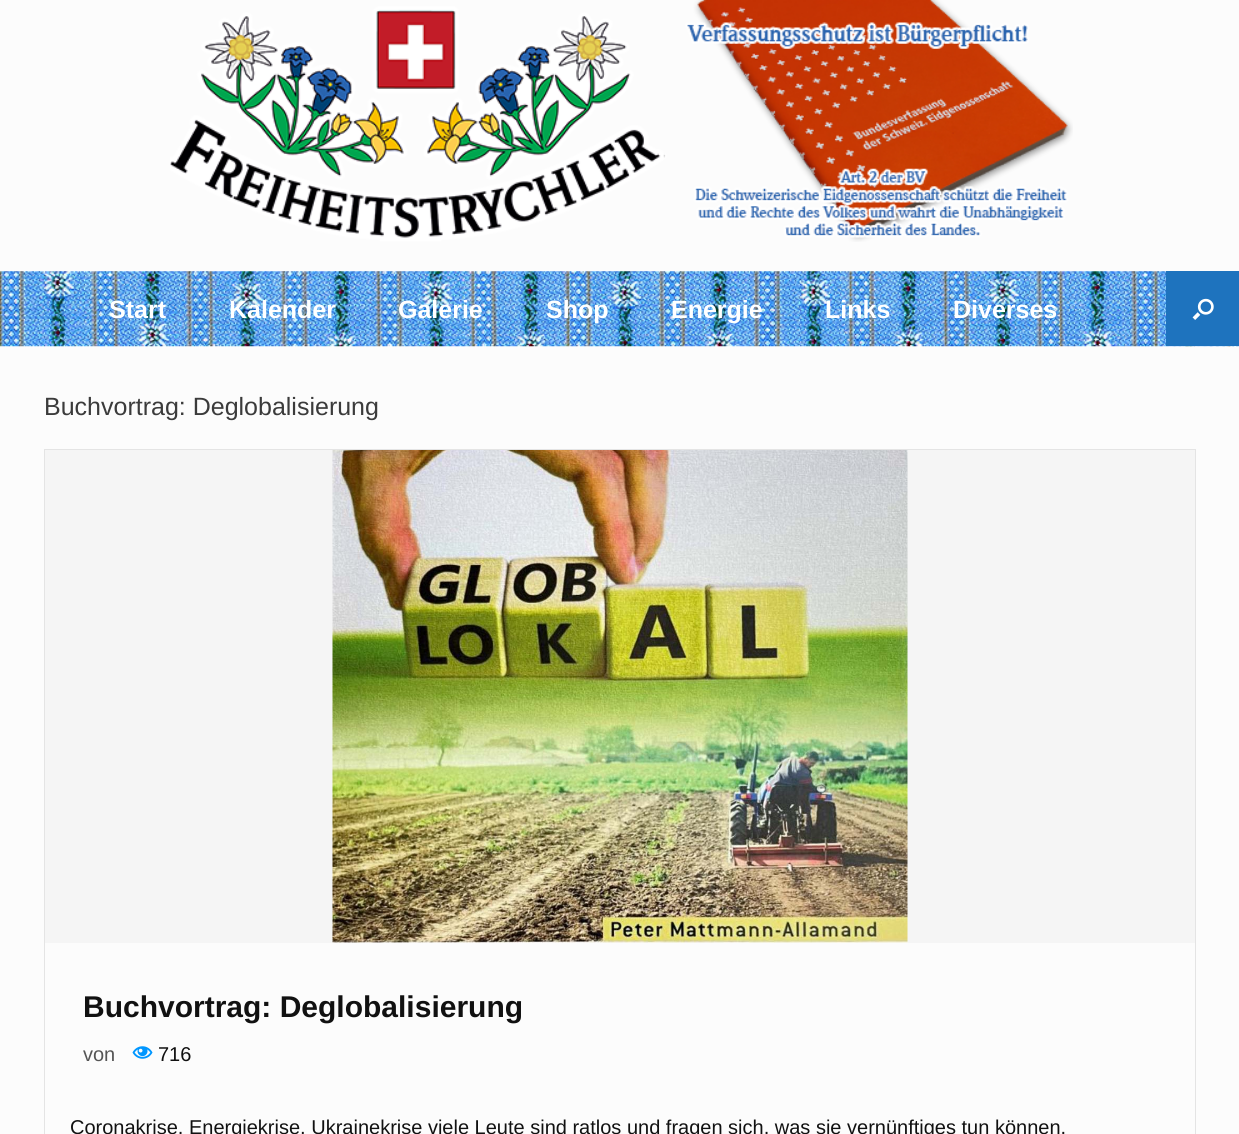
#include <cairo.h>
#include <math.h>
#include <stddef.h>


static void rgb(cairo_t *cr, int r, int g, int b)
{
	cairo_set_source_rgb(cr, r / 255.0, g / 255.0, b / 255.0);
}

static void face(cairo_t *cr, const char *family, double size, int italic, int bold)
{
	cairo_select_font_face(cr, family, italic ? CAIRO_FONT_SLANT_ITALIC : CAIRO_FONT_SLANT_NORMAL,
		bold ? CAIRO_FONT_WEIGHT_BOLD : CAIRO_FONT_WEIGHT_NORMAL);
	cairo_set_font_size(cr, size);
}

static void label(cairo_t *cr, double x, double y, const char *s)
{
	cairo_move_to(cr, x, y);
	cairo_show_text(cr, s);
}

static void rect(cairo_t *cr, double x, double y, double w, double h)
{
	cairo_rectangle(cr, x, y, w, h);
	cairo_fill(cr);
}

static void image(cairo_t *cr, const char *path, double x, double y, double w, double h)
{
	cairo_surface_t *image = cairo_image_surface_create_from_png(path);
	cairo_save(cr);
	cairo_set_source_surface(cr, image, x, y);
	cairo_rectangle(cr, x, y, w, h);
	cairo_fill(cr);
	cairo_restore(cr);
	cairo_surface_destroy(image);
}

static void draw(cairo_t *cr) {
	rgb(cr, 252, 252, 252);
	cairo_paint(cr);
	image(cr, "image0.png", 170, 0, 903, 242);
	image(cr, "image1.png", 0, 271, 1239, 76);
	face(cr, "Liberation Sans", 25, 0, 1);
	rgb(cr, 255, 255, 255);
	label(cr, 109, 318, "Start");
	label(cr, 229, 318, "Kalender");
	label(cr, 398, 318, "Galerie");
	label(cr, 546, 318, "Shop");
	label(cr, 671, 318, "Energie");
	label(cr, 825, 318, "Links");
	label(cr, 953, 318, "Diverses");
	rgb(cr, 30, 115, 190);
	rect(cr, 1166, 271, 73, 75);
	image(cr, "image2.png", 1192, 298, 22, 22);
	face(cr, "Liberation Sans", 25, 0, 0);
	rgb(cr, 59, 59, 59);
	label(cr, 44, 415, "Buchvortrag: Deglobalisierung");
	cairo_rectangle(cr, 44.5, 449.5, 1151, 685);
	rgb(cr, 228, 228, 228);
	cairo_set_line_width(cr, 1);
	cairo_stroke(cr);
	rgb(cr, 245, 245, 245);
	rect(cr, 45, 450, 1150, 493);
	image(cr, "image3.png", 332, 450, 576, 493);
	face(cr, "Liberation Sans", 30, 0, 1);
	rgb(cr, 17, 17, 17);
	label(cr, 83, 1017, "Buchvortrag: Deglobalisierung");
	face(cr, "Liberation Sans", 20, 0, 0);
	rgb(cr, 85, 85, 85);
	label(cr, 83, 1061, "von");
	image(cr, "image4.png", 132, 1046, 21, 13);
	rgb(cr, 17, 17, 17);
	label(cr, 158, 1061, "716");
	label(cr, 70, 1134, "Coronakrise, Energiekrise, Ukrainekrise viele Leute sind ratlos und fragen sich, was sie vernünftiges tun können.");
}

int main(void) {
	cairo_surface_t *surface = cairo_image_surface_create(CAIRO_FORMAT_RGB24, 1239, 1134);
	cairo_t *cr = cairo_create(surface);
	cairo_font_options_t *options = cairo_font_options_create();
	cairo_font_options_set_hint_metrics(options, CAIRO_HINT_METRICS_OFF);
	cairo_font_options_set_hint_style(options, CAIRO_HINT_STYLE_NONE);
	cairo_set_font_options(cr, options);
	cairo_set_miter_limit(cr, 4);
	draw(cr);
	cairo_surface_write_to_png(surface, "render.png");
	cairo_font_options_destroy(options);
	cairo_destroy(cr);
	cairo_surface_destroy(surface);
	return 0;
}
